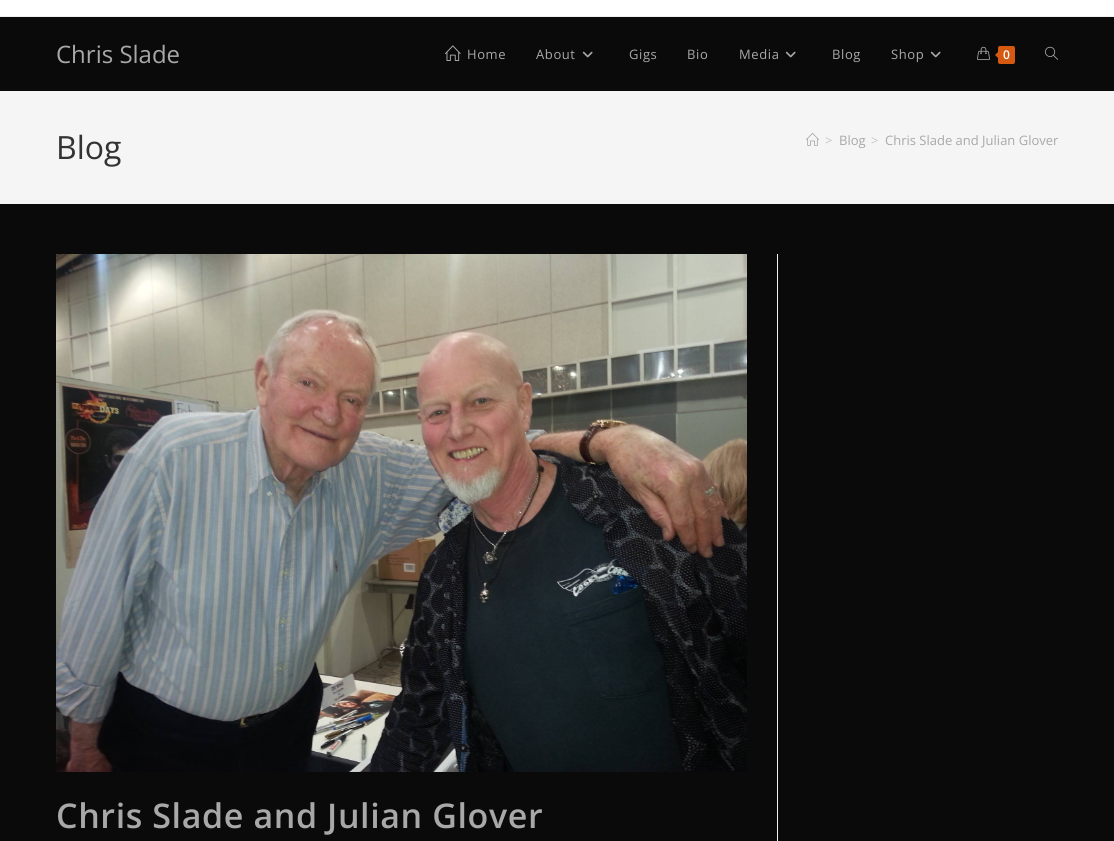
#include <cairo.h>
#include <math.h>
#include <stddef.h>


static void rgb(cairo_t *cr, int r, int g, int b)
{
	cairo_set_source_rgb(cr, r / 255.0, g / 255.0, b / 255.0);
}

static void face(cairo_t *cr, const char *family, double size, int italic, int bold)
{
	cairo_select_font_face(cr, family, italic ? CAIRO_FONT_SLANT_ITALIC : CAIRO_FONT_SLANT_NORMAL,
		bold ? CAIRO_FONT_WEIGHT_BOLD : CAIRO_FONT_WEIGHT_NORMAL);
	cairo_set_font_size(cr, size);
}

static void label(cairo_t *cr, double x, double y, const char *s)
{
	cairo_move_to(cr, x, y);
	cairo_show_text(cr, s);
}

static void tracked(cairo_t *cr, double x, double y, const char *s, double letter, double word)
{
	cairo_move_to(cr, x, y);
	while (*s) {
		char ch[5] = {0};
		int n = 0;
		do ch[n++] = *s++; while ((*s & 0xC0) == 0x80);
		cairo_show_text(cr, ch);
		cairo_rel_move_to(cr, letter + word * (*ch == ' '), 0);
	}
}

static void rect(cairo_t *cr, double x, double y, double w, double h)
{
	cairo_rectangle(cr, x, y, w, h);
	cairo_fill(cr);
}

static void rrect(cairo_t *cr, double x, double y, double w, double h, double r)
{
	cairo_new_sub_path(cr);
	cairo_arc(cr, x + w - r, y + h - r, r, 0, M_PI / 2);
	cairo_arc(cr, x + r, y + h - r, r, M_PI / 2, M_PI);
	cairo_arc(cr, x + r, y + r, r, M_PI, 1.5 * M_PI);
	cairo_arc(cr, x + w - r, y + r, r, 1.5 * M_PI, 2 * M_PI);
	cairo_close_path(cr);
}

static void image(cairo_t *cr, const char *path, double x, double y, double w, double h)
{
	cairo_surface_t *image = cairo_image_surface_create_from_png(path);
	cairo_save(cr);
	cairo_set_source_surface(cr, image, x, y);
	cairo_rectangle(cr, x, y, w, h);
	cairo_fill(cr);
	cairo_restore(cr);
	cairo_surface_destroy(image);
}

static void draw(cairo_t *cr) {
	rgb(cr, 10, 10, 10);
	cairo_paint(cr);
	rgb(cr, 255, 255, 255);
	rect(cr, 0, 0, 1114, 16);
	rgb(cr, 241, 241, 241);
	rect(cr, 0, 16, 1114, 1);
	face(cr, "Open Sans", 24, 0, 0);
	rgb(cr, 168, 168, 168);
	label(cr, 56, 63, "Chris Slade");
	image(cr, "image0.png", 445, 45, 16, 16);
	face(cr, "Open Sans", 13, 0, 0);
	tracked(cr, 467, 59, "Home", 0.6, 0);
	tracked(cr, 536, 59, "About", 0.6, 0);
	image(cr, "image1.png", 582, 51, 11, 7);
	tracked(cr, 629, 59, "Gigs", 0.6, 0);
	tracked(cr, 687, 59, "Bio", 0.6, 0);
	tracked(cr, 739, 59, "Media", 0.6, 0);
	image(cr, "image1.png", 785, 51, 11, 7);
	tracked(cr, 832, 59, "Blog", 0.6, 0);
	tracked(cr, 891, 59, "Shop", 0.6, 0);
	image(cr, "image1.png", 930, 51, 11, 7);
	image(cr, "image2.png", 977, 46, 13, 14);
	rgb(cr, 214, 89, 17);
	rrect(cr, 998, 46, 17, 18, 2);
	cairo_fill(cr);
	cairo_new_path(cr);
	cairo_move_to(cr, 1000, 50);
	cairo_line_to(cr, 1000, 60);
	cairo_line_to(cr, 995, 55);
	cairo_close_path(cr);
	cairo_fill(cr);
	face(cr, "Open Sans SemiBold", 12, 0, 0);
	rgb(cr, 255, 255, 255);
	label(cr, 1003, 59, "0");
	image(cr, "image3.png", 1045, 46, 13, 14);
	rgb(cr, 245, 245, 245);
	rect(cr, 0, 91, 1114, 113);
	face(cr, "Open Sans", 32, 0, 0);
	rgb(cr, 51, 51, 51);
	label(cr, 56, 159, "Blog");
	image(cr, "image4.png", 806, 132, 13, 14);
	face(cr, "Open Sans", 13, 0, 0);
	rgb(cr, 198, 198, 198);
	label(cr, 825, 145, ">");
	rgb(cr, 168, 168, 168);
	label(cr, 839, 145, "Blog");
	rgb(cr, 198, 198, 198);
	label(cr, 871, 145, ">");
	rgb(cr, 168, 168, 168);
	label(cr, 885, 145, "Chris Slade and Julian Glover");
	rgb(cr, 241, 241, 241);
	rect(cr, 777, 254, 1, 587);
	image(cr, "image5.png", 56, 254, 691, 518);
	face(cr, "Open Sans SemiBold", 34, 0, 0);
	rgb(cr, 168, 168, 168);
	tracked(cr, 56, 828, "Chris Slade and Julian Glover", 0.6, 0);
}

int main(void) {
	cairo_surface_t *surface = cairo_image_surface_create(CAIRO_FORMAT_RGB24, 1114, 841);
	cairo_t *cr = cairo_create(surface);
	cairo_font_options_t *options = cairo_font_options_create();
	cairo_font_options_set_hint_metrics(options, CAIRO_HINT_METRICS_OFF);
	cairo_font_options_set_hint_style(options, CAIRO_HINT_STYLE_NONE);
	cairo_set_font_options(cr, options);
	cairo_set_miter_limit(cr, 4);
	draw(cr);
	cairo_surface_write_to_png(surface, "render.png");
	cairo_font_options_destroy(options);
	cairo_destroy(cr);
	cairo_surface_destroy(surface);
	return 0;
}
